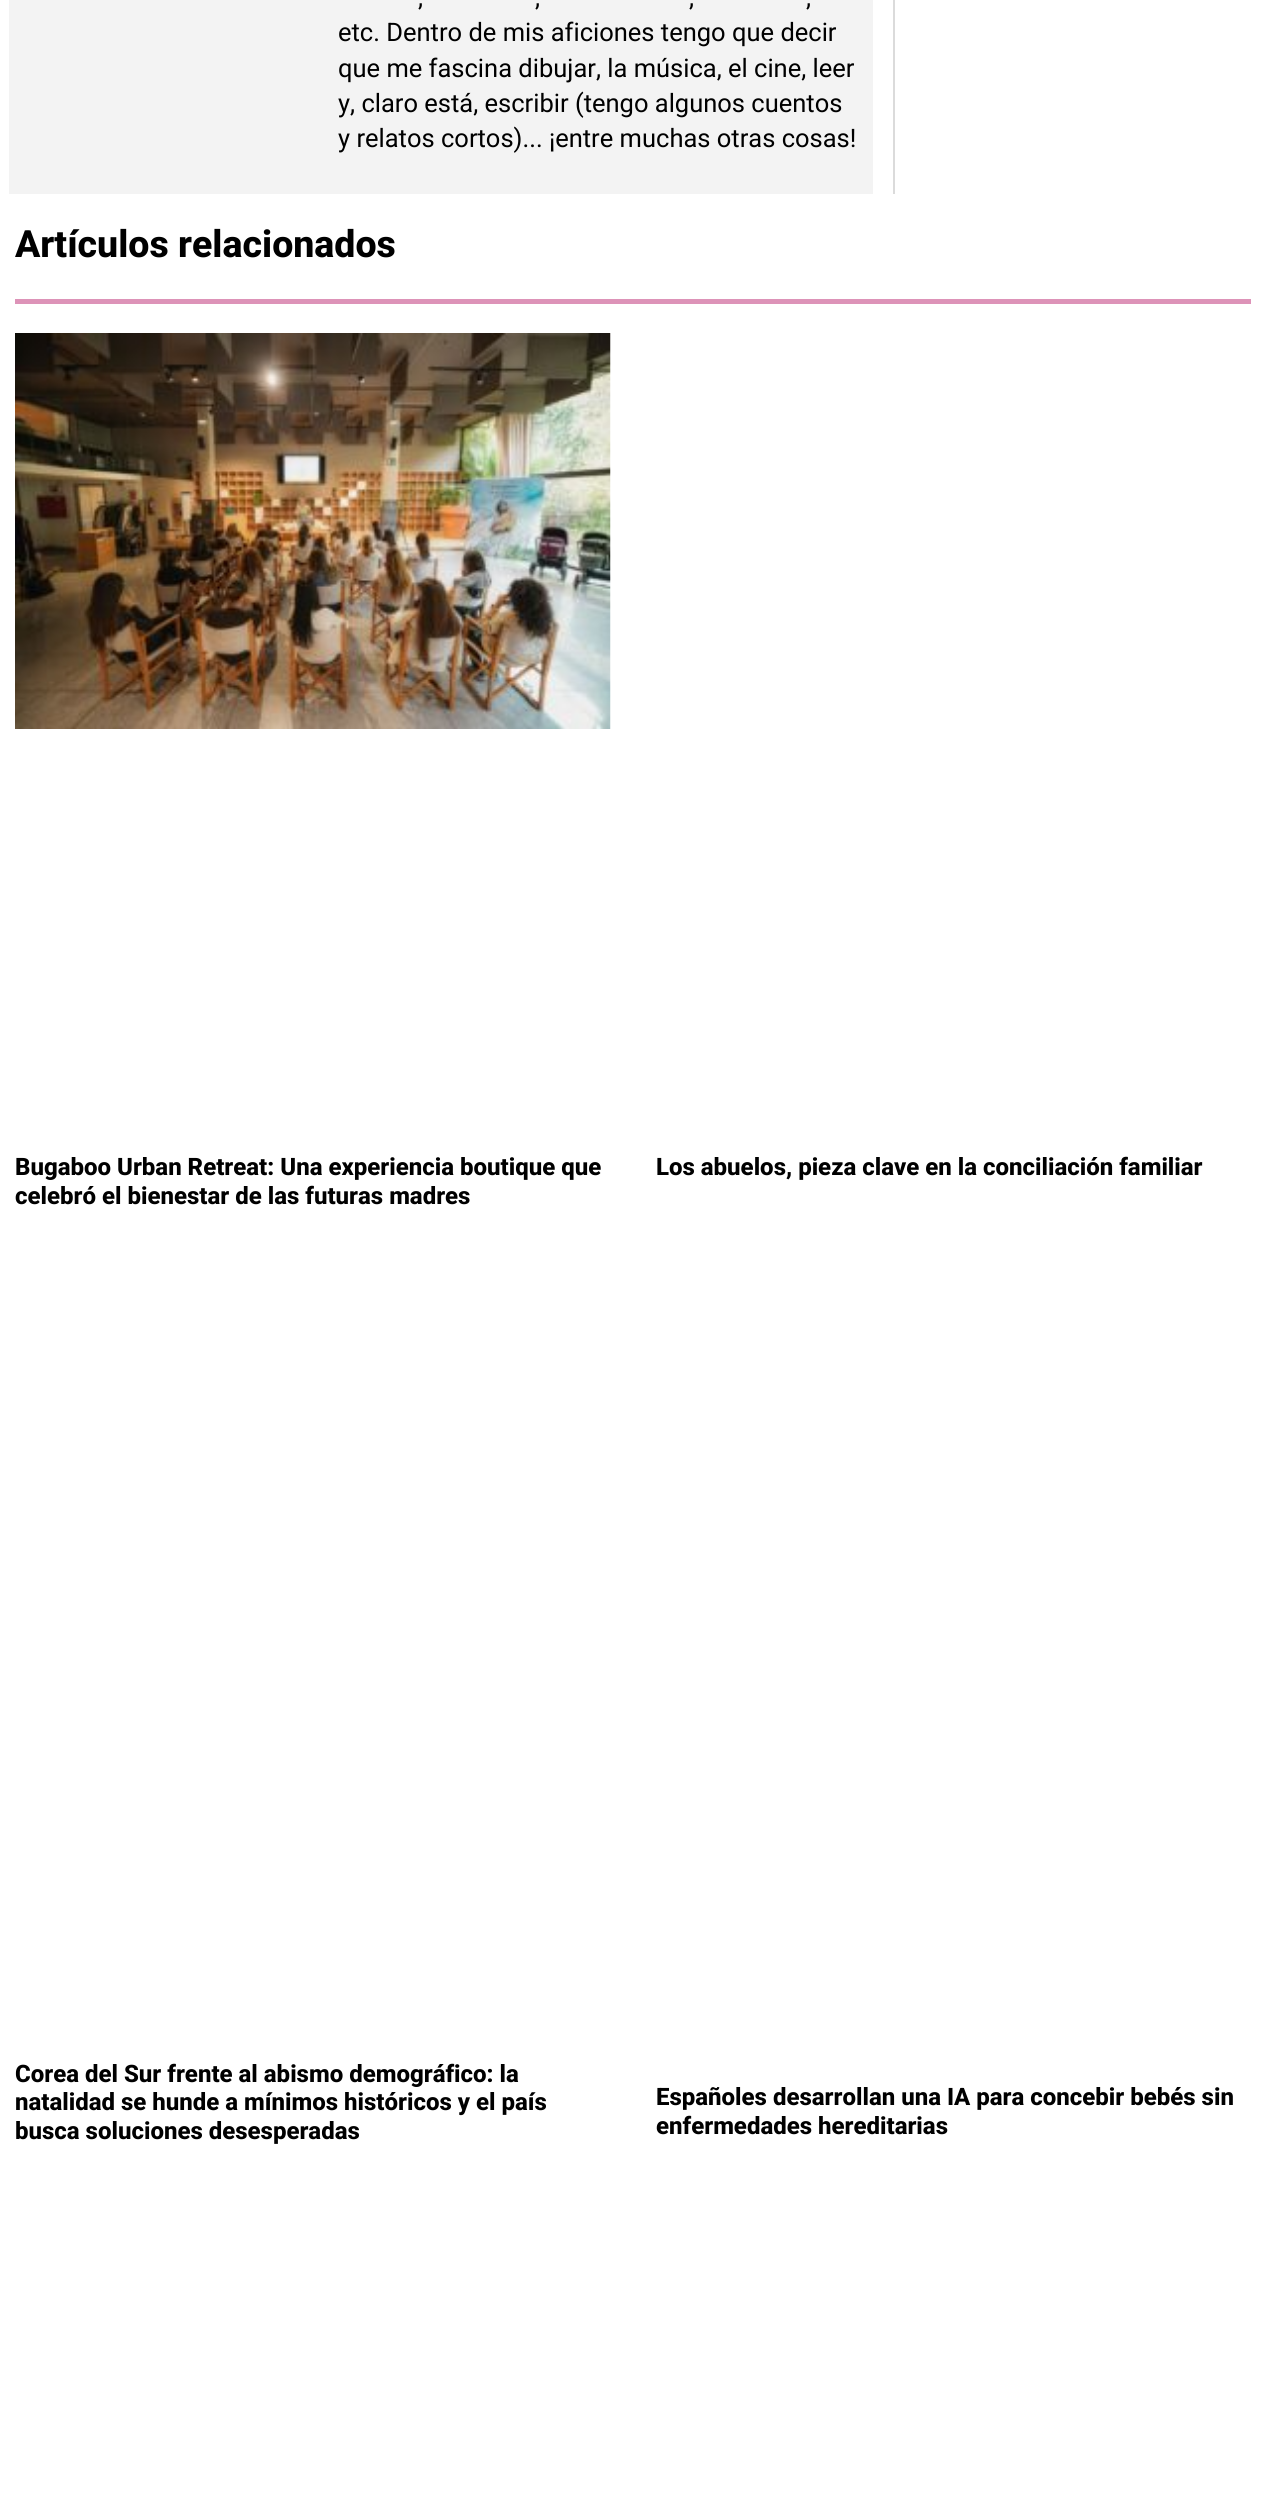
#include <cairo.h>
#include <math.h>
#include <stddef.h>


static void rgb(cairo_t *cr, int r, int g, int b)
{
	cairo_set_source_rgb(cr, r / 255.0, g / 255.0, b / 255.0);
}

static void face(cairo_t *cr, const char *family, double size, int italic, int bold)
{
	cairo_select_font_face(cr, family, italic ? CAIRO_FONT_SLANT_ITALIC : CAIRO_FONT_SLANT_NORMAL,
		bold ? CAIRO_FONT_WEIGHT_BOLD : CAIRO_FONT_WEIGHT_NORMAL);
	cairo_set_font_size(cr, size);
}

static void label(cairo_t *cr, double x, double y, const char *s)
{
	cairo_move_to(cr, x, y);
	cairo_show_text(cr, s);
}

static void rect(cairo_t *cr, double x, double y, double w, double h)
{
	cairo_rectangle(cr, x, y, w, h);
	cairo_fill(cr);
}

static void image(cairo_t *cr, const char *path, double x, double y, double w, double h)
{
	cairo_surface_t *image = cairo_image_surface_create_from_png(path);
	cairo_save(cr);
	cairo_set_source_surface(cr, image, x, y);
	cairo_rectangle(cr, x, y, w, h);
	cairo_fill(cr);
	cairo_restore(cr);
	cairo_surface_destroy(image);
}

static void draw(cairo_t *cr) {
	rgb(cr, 255, 255, 255);
	cairo_paint(cr);
	rgb(cr, 219, 219, 219);
	rect(cr, 893, 0, 2, 194);
	rgb(cr, 243, 243, 243);
	rect(cr, 9, 0, 864, 194);
	face(cr, "Roboto", 25.5, 0, 0);
	rgb(cr, 0, 0, 0);
	label(cr, 418, 6, ",");
	label(cr, 535, 6, ",");
	label(cr, 689, 6, ",");
	label(cr, 806, 6, ",");
	label(cr, 338, 41, "etc. Dentro de mis aficiones tengo que decir");
	label(cr, 338, 77, "que me fascina dibujar, la música, el cine, leer");
	label(cr, 338, 112, "y, claro está, escribir (tengo algunos cuentos");
	label(cr, 338, 147, "y relatos cortos)... ¡entre muchas otras cosas!");
	face(cr, "Roboto ExtraBold", 37.5, 0, 0);
	label(cr, 15, 257, "Artículos relacionados");
	rgb(cr, 221, 147, 184);
	rect(cr, 15, 299, 1236, 5);
	image(cr, "image0.png", 15, 333, 596, 396);
	face(cr, "Roboto ExtraBold", 24, 0, 0);
	rgb(cr, 0, 0, 0);
	label(cr, 15, 1175, "Bugaboo Urban Retreat: Una experiencia boutique que");
	label(cr, 15, 1204, "celebró el bienestar de las futuras madres");
	label(cr, 656, 1175, "Los abuelos, pieza clave en la conciliación familiar");
	label(cr, 15, 2082, "Corea del Sur frente al abismo demográfico: la");
	label(cr, 15, 2110, "natalidad se hunde a mínimos históricos y el país");
	label(cr, 15, 2139, "busca soluciones desesperadas");
	label(cr, 656, 2105, "Españoles desarrollan una IA para concebir bebés sin");
	label(cr, 656, 2134, "enfermedades hereditarias");
}

int main(void) {
	cairo_surface_t *surface = cairo_image_surface_create(CAIRO_FORMAT_RGB24, 1265, 2520);
	cairo_t *cr = cairo_create(surface);
	cairo_font_options_t *options = cairo_font_options_create();
	cairo_font_options_set_hint_metrics(options, CAIRO_HINT_METRICS_OFF);
	cairo_font_options_set_hint_style(options, CAIRO_HINT_STYLE_NONE);
	cairo_set_font_options(cr, options);
	cairo_set_miter_limit(cr, 4);
	draw(cr);
	cairo_surface_write_to_png(surface, "render.png");
	cairo_font_options_destroy(options);
	cairo_destroy(cr);
	cairo_surface_destroy(surface);
	return 0;
}
